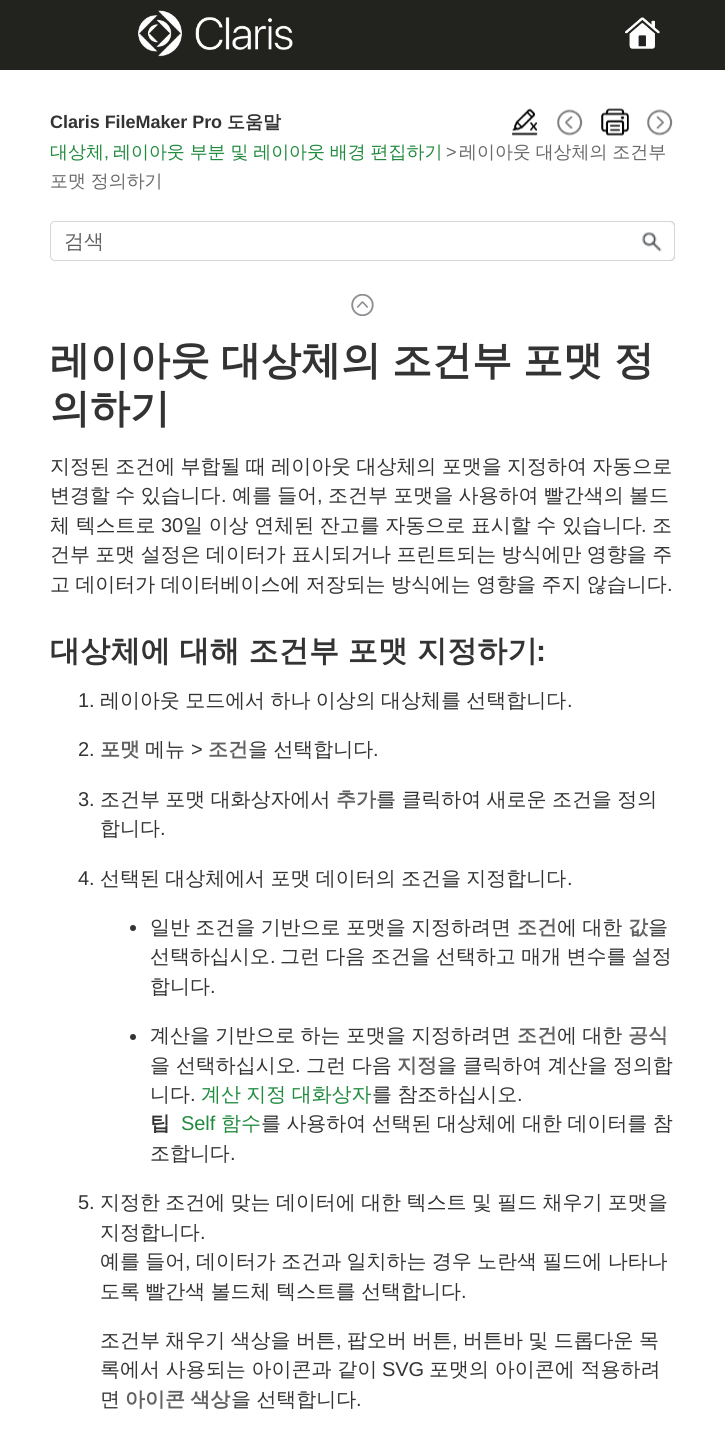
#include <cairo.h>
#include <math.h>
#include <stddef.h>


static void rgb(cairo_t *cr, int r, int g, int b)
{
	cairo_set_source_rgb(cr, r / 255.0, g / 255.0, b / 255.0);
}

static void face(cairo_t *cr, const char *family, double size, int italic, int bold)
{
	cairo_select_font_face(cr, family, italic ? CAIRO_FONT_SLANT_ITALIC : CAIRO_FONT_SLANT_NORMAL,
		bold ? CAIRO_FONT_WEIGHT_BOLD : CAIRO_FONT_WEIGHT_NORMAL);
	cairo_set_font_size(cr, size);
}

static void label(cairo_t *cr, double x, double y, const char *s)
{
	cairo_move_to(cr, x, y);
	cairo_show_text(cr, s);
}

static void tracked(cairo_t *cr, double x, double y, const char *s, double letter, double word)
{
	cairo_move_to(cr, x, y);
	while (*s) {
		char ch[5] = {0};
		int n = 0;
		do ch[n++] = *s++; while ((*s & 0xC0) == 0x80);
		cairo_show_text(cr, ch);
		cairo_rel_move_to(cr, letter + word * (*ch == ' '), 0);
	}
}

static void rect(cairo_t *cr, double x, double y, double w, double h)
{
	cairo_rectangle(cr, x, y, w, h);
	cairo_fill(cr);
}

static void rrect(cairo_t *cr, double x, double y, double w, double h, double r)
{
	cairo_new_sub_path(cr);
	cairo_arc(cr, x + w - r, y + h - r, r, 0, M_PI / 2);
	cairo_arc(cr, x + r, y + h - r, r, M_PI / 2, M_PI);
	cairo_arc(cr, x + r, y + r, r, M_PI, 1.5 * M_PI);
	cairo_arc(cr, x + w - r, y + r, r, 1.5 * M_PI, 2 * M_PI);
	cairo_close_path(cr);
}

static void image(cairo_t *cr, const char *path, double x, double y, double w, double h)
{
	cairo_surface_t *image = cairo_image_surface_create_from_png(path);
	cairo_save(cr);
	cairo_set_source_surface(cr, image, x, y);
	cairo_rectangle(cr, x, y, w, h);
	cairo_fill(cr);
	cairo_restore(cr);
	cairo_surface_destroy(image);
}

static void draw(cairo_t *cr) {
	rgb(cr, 255, 255, 255);
	cairo_paint(cr);
	rgb(cr, 34, 34, 31);
	rect(cr, 0, 0, 725, 70);
	image(cr, "image0.png", 138, 10, 155, 47);
	image(cr, "image1.png", 625, 17, 35, 32);
	face(cr, "Liberation Sans", 18, 0, 1);
	rgb(cr, 51, 51, 51);
	tracked(cr, 50, 128, "Claris FileMaker Pro", -0.05, 0);
	face(cr, "WenQuanYi Zen Hei", 18, 0, 1);
	tracked(cr, 227, 128, "도움말", -0.05, 0);
	image(cr, "image2.png", 512, 108, 26, 28);
	image(cr, "image3.png", 557, 109, 26, 27);
	image(cr, "image4.png", 601, 108, 28, 28);
	image(cr, "image5.png", 647, 109, 26, 27);
	face(cr, "WenQuanYi Zen Hei Medium", 18, 0, 0);
	rgb(cr, 32, 138, 61);
	tracked(cr, 50, 158, "대상체", -0.05, 0);
	tracked(cr, 113, 158, "레이아웃 부분 및 레이아웃 배경 편집하기", -0.05, -0.5);
	face(cr, "Liberation Sans", 18, 0, 0);
	rgb(cr, 105, 105, 105);
	tracked(cr, 446, 158, ">", -0.05, 0);
	face(cr, "WenQuanYi Zen Hei Medium", 18, 0, 0);
	tracked(cr, 459, 158, "레이아웃 대상체의 조건부", -0.05, -0.5);
	face(cr, "Liberation Sans", 18, 0, 0);
	rgb(cr, 32, 138, 61);
	tracked(cr, 104, 158, ",", -0.05, 0);
	face(cr, "WenQuanYi Zen Hei Medium", 18, 0, 0);
	rgb(cr, 105, 105, 105);
	tracked(cr, 50, 187, "포맷 정의하기", -0.05, -0.5);
	rrect(cr, 50.5, 221.5, 624, 39, 4.5);
	rgb(cr, 214, 214, 214);
	cairo_set_line_width(cr, 1);
	cairo_stroke(cr);
	face(cr, "WenQuanYi Zen Hei Medium", 20, 0, 0);
	rgb(cr, 98, 98, 98);
	label(cr, 64, 248, "검색");
	image(cr, "image6.png", 642, 232, 20, 20);
	rgb(cr, 214, 214, 214);
	cairo_set_fill_rule(cr, CAIRO_FILL_RULE_EVEN_ODD);
	cairo_new_path(cr);
	cairo_move_to(cr, 630, 221);
	cairo_line_to(cr, 670, 221);
	cairo_curve_to(cr, 673, 221, 675, 223, 675, 226);
	cairo_line_to(cr, 675, 256);
	cairo_curve_to(cr, 675, 259, 673, 261, 670, 261);
	cairo_line_to(cr, 630, 261);
	cairo_close_path(cr);
	cairo_move_to(cr, 630, 222);
	cairo_line_to(cr, 670, 222);
	cairo_curve_to(cr, 672, 222, 674, 224, 674, 226);
	cairo_line_to(cr, 674, 256);
	cairo_curve_to(cr, 674, 258, 672, 260, 670, 260);
	cairo_line_to(cr, 630, 260);
	cairo_close_path(cr);
	cairo_fill(cr);
	image(cr, "image7.png", 351, 294, 23, 22);
	face(cr, "WenQuanYi Zen Hei", 40, 0, 1);
	rgb(cr, 51, 51, 51);
	tracked(cr, 50, 374, "레이아웃 대상체의 조건부 포맷 정", 0, -1);
	label(cr, 50, 422, "의하기");
	face(cr, "WenQuanYi Zen Hei Medium", 20, 0, 0);
	tracked(cr, 50, 473, "지정된 조건에 부합될 때 레이아웃 대상체의 포맷을 지정하여 자동으로", -0.05, -0.5);
	tracked(cr, 50, 502, "변경할 수 있습니다", -0.05, -0.5);
	face(cr, "Liberation Sans", 20, 0, 0);
	tracked(cr, 221, 502, ".", -0.05, 0);
	face(cr, "WenQuanYi Zen Hei Medium", 20, 0, 0);
	tracked(cr, 232, 502, "예를 들어", -0.05, -0.5);
	face(cr, "Liberation Sans", 20, 0, 0);
	tracked(cr, 317, 502, ",", -0.05, 0);
	face(cr, "WenQuanYi Zen Hei Medium", 20, 0, 0);
	tracked(cr, 328, 502, "조건부 포맷을 사용하여 빨간색의 볼드", -0.05, -0.5);
	tracked(cr, 50, 532, "체 텍스트로", -0.05, -0.25);
	face(cr, "Liberation Sans", 20, 0, 0);
	tracked(cr, 161, 532, "30", -0.05, 0);
	face(cr, "WenQuanYi Zen Hei Medium", 20, 0, 0);
	tracked(cr, 183, 532, "일 이상 연체된 잔고를 자동으로 표시할 수 있습니다", -0.05, -0.25);
	face(cr, "Liberation Sans", 20, 0, 0);
	tracked(cr, 641, 532, ".", -0.05, 0);
	face(cr, "WenQuanYi Zen Hei Medium", 20, 0, 0);
	tracked(cr, 652, 532, "조", -0.05, 0);
	tracked(cr, 50, 561, "건부 포맷 설정은 데이터가 표시되거나 프린트되는 방식에만 영향을 주", -0.05, -0.5);
	tracked(cr, 50, 591, "고 데이터가 데이터베이스에 저장되는 방식에는 영향을 주지 않습니다", -0.05, -0.5);
	face(cr, "Liberation Sans", 20, 0, 0);
	tracked(cr, 667, 591, ".", -0.05, 0);
	face(cr, "WenQuanYi Zen Hei", 30, 0, 1);
	tracked(cr, 50, 661, "대상체에 대해 조건부 포맷 지정하기", 0.2, -0.5);
	face(cr, "Liberation Sans", 30, 0, 1);
	tracked(cr, 536, 661, ":", 0.2, 0);
	face(cr, "Liberation Sans", 20, 0, 0);
	tracked(cr, 78, 707, "1.", -0.05, 0);
	face(cr, "WenQuanYi Zen Hei Medium", 20, 0, 0);
	tracked(cr, 100, 707, "레이아웃 모드에서 하나 이상의 대상체를 선택합니다", -0.05, -0.5);
	face(cr, "Liberation Sans", 20, 0, 0);
	tracked(cr, 567, 707, ".", -0.05, 0);
	tracked(cr, 78, 756, "2.", -0.05, 0);
	face(cr, "WenQuanYi Zen Hei", 20, 0, 1);
	rgb(cr, 98, 98, 98);
	tracked(cr, 100, 756, "포맷", -0.05, 0);
	face(cr, "WenQuanYi Zen Hei Medium", 20, 0, 0);
	rgb(cr, 51, 51, 51);
	tracked(cr, 145, 756, "메뉴", -0.05, 0);
	face(cr, "Liberation Sans", 20, 0, 0);
	tracked(cr, 191, 756, ">", -0.05, 0);
	face(cr, "WenQuanYi Zen Hei", 20, 0, 1);
	rgb(cr, 98, 98, 98);
	tracked(cr, 208, 756, "조건", -0.05, 0);
	face(cr, "WenQuanYi Zen Hei Medium", 20, 0, 0);
	rgb(cr, 51, 51, 51);
	tracked(cr, 248, 756, "을 선택합니다", -0.05, -0.5);
	face(cr, "Liberation Sans", 20, 0, 0);
	tracked(cr, 373, 756, ".", -0.05, 0);
	tracked(cr, 78, 806, "3.", -0.05, 0);
	face(cr, "WenQuanYi Zen Hei Medium", 20, 0, 0);
	tracked(cr, 100, 806, "조건부 포맷 대화상자에서", -0.05, -0.5);
	face(cr, "WenQuanYi Zen Hei", 20, 0, 1);
	rgb(cr, 98, 98, 98);
	tracked(cr, 336, 806, "추가", -0.05, 0);
	face(cr, "WenQuanYi Zen Hei Medium", 20, 0, 0);
	rgb(cr, 51, 51, 51);
	tracked(cr, 376, 806, "를 클릭하여 새로운 조건을 정의", -0.05, -0.5);
	tracked(cr, 100, 835, "합니다", -0.05, 0);
	face(cr, "Liberation Sans", 20, 0, 0);
	tracked(cr, 160, 835, ".", -0.05, 0);
	tracked(cr, 78, 885, "4.", -0.05, 0);
	face(cr, "WenQuanYi Zen Hei Medium", 20, 0, 0);
	tracked(cr, 100, 885, "선택된 대상체에서 포맷 데이터의 조건을 지정합니다", -0.05, -0.5);
	face(cr, "Liberation Sans", 20, 0, 0);
	tracked(cr, 567, 885, ".", -0.05, 0);
	cairo_new_path(cr);
	cairo_arc(cr, 133, 928, 3, 0, 2 * M_PI);
	cairo_fill(cr);
	face(cr, "WenQuanYi Zen Hei Medium", 20, 0, 0);
	tracked(cr, 150, 934, "일반 조건을 기반으로 포맷을 지정하려면", -0.05, -0.5);
	face(cr, "WenQuanYi Zen Hei", 20, 0, 1);
	rgb(cr, 98, 98, 98);
	tracked(cr, 517, 934, "조건", -0.05, 0);
	face(cr, "WenQuanYi Zen Hei Medium", 20, 0, 0);
	rgb(cr, 51, 51, 51);
	tracked(cr, 557, 934, "에 대한", -0.05, -0.5);
	face(cr, "WenQuanYi Zen Hei", 20, 0, 1);
	rgb(cr, 98, 98, 98);
	tracked(cr, 628, 934, "값", -0.05, 0);
	face(cr, "WenQuanYi Zen Hei Medium", 20, 0, 0);
	rgb(cr, 51, 51, 51);
	tracked(cr, 648, 934, "을", -0.05, 0);
	tracked(cr, 150, 963, "선택하십시오", -0.05, 0);
	face(cr, "Liberation Sans", 20, 0, 0);
	tracked(cr, 270, 963, ".", -0.05, 0);
	face(cr, "WenQuanYi Zen Hei Medium", 20, 0, 0);
	tracked(cr, 280, 963, "그런 다음 조건을 선택하고 매개 변수를 설정", -0.05, -0.5);
	tracked(cr, 150, 993, "합니다", -0.05, 0);
	face(cr, "Liberation Sans", 20, 0, 0);
	tracked(cr, 210, 993, ".", -0.05, 0);
	cairo_new_path(cr);
	cairo_arc(cr, 133, 1037, 3, 0, 2 * M_PI);
	cairo_fill(cr);
	face(cr, "WenQuanYi Zen Hei Medium", 20, 0, 0);
	tracked(cr, 150, 1042, "계산을 기반으로 하는 포맷을 지정하려면", -0.05, -0.5);
	face(cr, "WenQuanYi Zen Hei", 20, 0, 1);
	rgb(cr, 98, 98, 98);
	tracked(cr, 517, 1042, "조건", -0.05, 0);
	face(cr, "WenQuanYi Zen Hei Medium", 20, 0, 0);
	rgb(cr, 51, 51, 51);
	tracked(cr, 557, 1042, "에 대한", -0.05, -0.5);
	face(cr, "WenQuanYi Zen Hei", 20, 0, 1);
	rgb(cr, 98, 98, 98);
	tracked(cr, 628, 1042, "공식", -0.05, 0);
	face(cr, "WenQuanYi Zen Hei Medium", 20, 0, 0);
	rgb(cr, 51, 51, 51);
	tracked(cr, 150, 1072, "을 선택하십시오", -0.05, 0);
	face(cr, "Liberation Sans", 20, 0, 0);
	tracked(cr, 295, 1072, ".", -0.05, 0);
	face(cr, "WenQuanYi Zen Hei Medium", 20, 0, 0);
	tracked(cr, 306, 1072, "그런 다음", -0.05, 0);
	face(cr, "WenQuanYi Zen Hei", 20, 0, 1);
	rgb(cr, 98, 98, 98);
	tracked(cr, 397, 1072, "지정", -0.05, 0);
	face(cr, "WenQuanYi Zen Hei Medium", 20, 0, 0);
	rgb(cr, 51, 51, 51);
	tracked(cr, 437, 1072, "을 클릭하여 계산을 정의합", -0.05, -0.5);
	tracked(cr, 150, 1101, "니다", -0.05, 0);
	face(cr, "Liberation Sans", 20, 0, 0);
	tracked(cr, 190, 1101, ".", -0.05, 0);
	face(cr, "WenQuanYi Zen Hei Medium", 20, 0, 0);
	rgb(cr, 32, 138, 61);
	tracked(cr, 201, 1101, "계산 지정 대화상자", -0.05, -0.5);
	rgb(cr, 51, 51, 51);
	tracked(cr, 372, 1101, "를 참조하십시오", -0.05, -0.5);
	face(cr, "Liberation Sans", 20, 0, 0);
	tracked(cr, 517, 1101, ".", -0.05, 0);
	face(cr, "WenQuanYi Zen Hei", 20, 0, 1);
	tracked(cr, 150, 1130, "팁", -0.05, 0);
	face(cr, "Liberation Sans", 20, 0, 0);
	rgb(cr, 32, 138, 61);
	tracked(cr, 181, 1130, "Self", -0.05, 0);
	face(cr, "WenQuanYi Zen Hei Medium", 20, 0, 0);
	tracked(cr, 221, 1130, "함수", -0.05, 0);
	rgb(cr, 51, 51, 51);
	tracked(cr, 261, 1130, "를 사용하여 선택된 대상체에 대한 데이터를 참", -0.05, -0.5);
	tracked(cr, 150, 1160, "조합니다", -0.05, 0);
	face(cr, "Liberation Sans", 20, 0, 0);
	tracked(cr, 230, 1160, ".", -0.05, 0);
	tracked(cr, 78, 1209, "5.", -0.05, 0);
	face(cr, "WenQuanYi Zen Hei Medium", 20, 0, 0);
	tracked(cr, 100, 1209, "지정한 조건에 맞는 데이터에 대한 텍스트 및 필드 채우기 포맷을", -0.05, -0.5);
	tracked(cr, 100, 1239, "지정합니다", -0.05, 0);
	face(cr, "Liberation Sans", 20, 0, 0);
	tracked(cr, 200, 1239, ".", -0.05, 0);
	face(cr, "WenQuanYi Zen Hei Medium", 20, 0, 0);
	tracked(cr, 100, 1268, "예를 들어", -0.05, -0.5);
	face(cr, "Liberation Sans", 20, 0, 0);
	tracked(cr, 185, 1268, ",", -0.05, 0);
	face(cr, "WenQuanYi Zen Hei Medium", 20, 0, 0);
	tracked(cr, 196, 1268, "데이터가 조건과 일치하는 경우 노란색 필드에 나타나", -0.05, -0.5);
	tracked(cr, 100, 1298, "도록 빨간색 볼드체 텍스트를 선택합니다", -0.05, -0.5);
	face(cr, "Liberation Sans", 20, 0, 0);
	tracked(cr, 461, 1298, ".", -0.05, 0);
	face(cr, "WenQuanYi Zen Hei Medium", 20, 0, 0);
	tracked(cr, 100, 1347, "조건부 채우기 색상을 버튼", -0.05, -0.5);
	face(cr, "Liberation Sans", 20, 0, 0);
	tracked(cr, 336, 1347, ",", -0.05, 0);
	face(cr, "WenQuanYi Zen Hei Medium", 20, 0, 0);
	tracked(cr, 347, 1347, "팝오버 버튼", -0.05, -0.5);
	face(cr, "Liberation Sans", 20, 0, 0);
	tracked(cr, 452, 1347, ",", -0.05, 0);
	face(cr, "WenQuanYi Zen Hei Medium", 20, 0, 0);
	tracked(cr, 463, 1347, "버튼바 및 드롭다운 목", -0.05, -0.5);
	tracked(cr, 100, 1376, "록에서 사용되는 아이콘과 같이", -0.05, 0);
	face(cr, "Liberation Sans", 20, 0, 0);
	tracked(cr, 382, 1376, "SVG", -0.05, 0);
	face(cr, "WenQuanYi Zen Hei Medium", 20, 0, 0);
	tracked(cr, 429, 1376, "포맷의 아이콘에 적용하려", -0.05, 0);
	tracked(cr, 100, 1406, "면", -0.05, 0);
	face(cr, "WenQuanYi Zen Hei", 20, 0, 1);
	rgb(cr, 98, 98, 98);
	tracked(cr, 125, 1406, "아이콘 색상", -0.05, -0.5);
	face(cr, "WenQuanYi Zen Hei Medium", 20, 0, 0);
	rgb(cr, 51, 51, 51);
	tracked(cr, 231, 1406, "을 선택합니다", -0.05, -0.5);
	face(cr, "Liberation Sans", 20, 0, 0);
	tracked(cr, 356, 1406, ".", -0.05, 0);
}

int main(void) {
	cairo_surface_t *surface = cairo_image_surface_create(CAIRO_FORMAT_RGB24, 725, 1440);
	cairo_t *cr = cairo_create(surface);
	cairo_font_options_t *options = cairo_font_options_create();
	cairo_font_options_set_hint_metrics(options, CAIRO_HINT_METRICS_OFF);
	cairo_font_options_set_hint_style(options, CAIRO_HINT_STYLE_NONE);
	cairo_set_font_options(cr, options);
	cairo_set_miter_limit(cr, 4);
	draw(cr);
	cairo_surface_write_to_png(surface, "render.png");
	cairo_font_options_destroy(options);
	cairo_destroy(cr);
	cairo_surface_destroy(surface);
	return 0;
}
